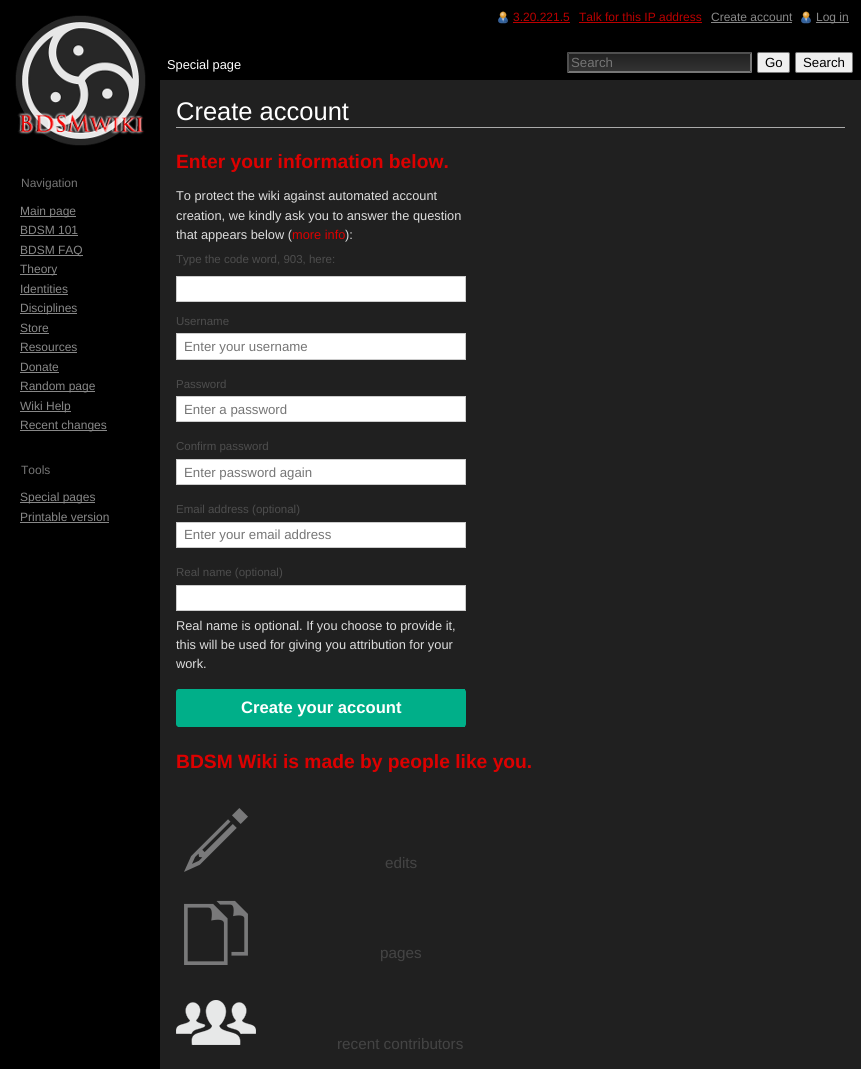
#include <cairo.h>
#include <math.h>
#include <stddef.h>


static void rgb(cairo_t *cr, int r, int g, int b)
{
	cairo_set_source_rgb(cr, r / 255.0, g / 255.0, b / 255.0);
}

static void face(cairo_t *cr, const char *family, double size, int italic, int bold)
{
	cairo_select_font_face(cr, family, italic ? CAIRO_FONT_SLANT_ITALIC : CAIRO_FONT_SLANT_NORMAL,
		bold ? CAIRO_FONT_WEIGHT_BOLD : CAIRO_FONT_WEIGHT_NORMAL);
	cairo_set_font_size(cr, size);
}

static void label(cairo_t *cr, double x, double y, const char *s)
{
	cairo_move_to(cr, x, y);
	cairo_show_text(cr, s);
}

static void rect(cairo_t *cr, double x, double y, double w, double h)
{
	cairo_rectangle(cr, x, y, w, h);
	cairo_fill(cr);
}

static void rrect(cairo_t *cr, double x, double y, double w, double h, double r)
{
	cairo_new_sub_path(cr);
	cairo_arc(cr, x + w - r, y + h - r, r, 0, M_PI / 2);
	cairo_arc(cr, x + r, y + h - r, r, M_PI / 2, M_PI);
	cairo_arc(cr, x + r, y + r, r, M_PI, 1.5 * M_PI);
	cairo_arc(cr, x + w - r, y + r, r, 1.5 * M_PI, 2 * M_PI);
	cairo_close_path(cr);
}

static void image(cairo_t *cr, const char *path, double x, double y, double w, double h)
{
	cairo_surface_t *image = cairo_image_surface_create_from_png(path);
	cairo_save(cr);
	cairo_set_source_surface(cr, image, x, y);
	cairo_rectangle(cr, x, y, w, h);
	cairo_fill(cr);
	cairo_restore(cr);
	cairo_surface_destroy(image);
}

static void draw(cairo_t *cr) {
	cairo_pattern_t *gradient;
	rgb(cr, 0, 0, 0);
	cairo_paint(cr);
	image(cr, "image0.png", 498, 11, 10, 13);
	face(cr, "Liberation Sans", 12, 0, 0);
	rgb(cr, 186, 0, 0);
	label(cr, 513, 21, "3.20.221.5");
	rect(cr, 513, 22, 57, 1);
	label(cr, 579, 21, "Talk for this IP address");
	rect(cr, 579, 22, 123, 1);
	rgb(cr, 136, 136, 136);
	label(cr, 711, 21, "Create account");
	rect(cr, 711, 22, 81, 1);
	image(cr, "image0.png", 801, 11, 10, 13);
	rect(cr, 816, 22, 33, 1);
	label(cr, 816, 21, "Log in");
	face(cr, "Liberation Sans", 12.8, 0, 0);
	rgb(cr, 255, 255, 255);
	label(cr, 167, 69, "Special page");
	gradient = cairo_pattern_create_linear(660, 54, 660, 71);
	cairo_pattern_add_color_stop_rgba(gradient, 0, 0.133, 0.133, 0.133, 1);
	cairo_pattern_add_color_stop_rgba(gradient, 1, 0.2, 0.2, 0.2, 1);
	cairo_set_source(cr, gradient);
	cairo_pattern_destroy(gradient);
	rect(cr, 569, 54, 181, 17);
	rgb(cr, 79, 79, 79);
	cairo_new_path(cr);
	cairo_move_to(cr, 567, 52);
	cairo_line_to(cr, 752, 52);
	cairo_line_to(cr, 750, 54);
	cairo_line_to(cr, 569, 54);
	cairo_close_path(cr);
	cairo_fill(cr);
	rgb(cr, 118, 118, 118);
	cairo_new_path(cr);
	cairo_move_to(cr, 752, 52);
	cairo_line_to(cr, 752, 73);
	cairo_line_to(cr, 750, 71);
	cairo_line_to(cr, 750, 54);
	cairo_close_path(cr);
	cairo_fill(cr);
	cairo_new_path(cr);
	cairo_move_to(cr, 752, 73);
	cairo_line_to(cr, 567, 73);
	cairo_line_to(cr, 569, 71);
	cairo_line_to(cr, 750, 71);
	cairo_close_path(cr);
	cairo_fill(cr);
	rgb(cr, 79, 79, 79);
	cairo_new_path(cr);
	cairo_move_to(cr, 567, 73);
	cairo_line_to(cr, 567, 52);
	cairo_line_to(cr, 569, 54);
	cairo_line_to(cr, 569, 71);
	cairo_close_path(cr);
	cairo_fill(cr);
	face(cr, "Liberation Sans", 13.25, 0, 0);
	rgb(cr, 117, 117, 117);
	label(cr, 571, 67, "Search");
	rgb(cr, 239, 239, 239);
	rrect(cr, 757.5, 52.5, 32, 20, 1.5);
	cairo_fill_preserve(cr);
	rgb(cr, 118, 118, 118);
	cairo_set_line_width(cr, 1);
	cairo_stroke(cr);
	rgb(cr, 0, 0, 0);
	label(cr, 765, 67, "Go");
	rgb(cr, 239, 239, 239);
	rrect(cr, 795.5, 52.5, 57, 20, 1.5);
	cairo_fill_preserve(cr);
	rgb(cr, 118, 118, 118);
	cairo_stroke(cr);
	rgb(cr, 0, 0, 0);
	label(cr, 803, 67, "Search");
	image(cr, "image1.png", 15, 15, 131, 131);
	face(cr, "Liberation Sans", 12, 0, 0);
	rgb(cr, 117, 117, 117);
	label(cr, 21, 187, "Navigation");
	rgb(cr, 136, 136, 136);
	rect(cr, 20, 216, 56, 1);
	label(cr, 20, 215, "Main page");
	label(cr, 20, 234, "BDSM 101");
	rect(cr, 20, 235, 58, 1);
	rect(cr, 20, 255, 63, 1);
	label(cr, 20, 254, "BDSM FAQ");
	rect(cr, 20, 274, 37, 1);
	label(cr, 20, 273, "Theory");
	label(cr, 20, 293, "Identities");
	rect(cr, 20, 294, 48, 1);
	rect(cr, 20, 313, 57, 1);
	label(cr, 20, 312, "Disciplines");
	label(cr, 20, 332, "Store");
	rect(cr, 20, 333, 29, 1);
	label(cr, 20, 351, "Resources");
	rect(cr, 20, 352, 57, 1);
	label(cr, 20, 371, "Donate");
	rect(cr, 20, 372, 39, 1);
	rect(cr, 20, 391, 75, 1);
	label(cr, 20, 390, "Random page");
	rect(cr, 20, 411, 51, 1);
	label(cr, 20, 410, "Wiki Help");
	rect(cr, 20, 430, 87, 1);
	label(cr, 20, 429, "Recent changes");
	rgb(cr, 117, 117, 117);
	label(cr, 21, 474, "Tools");
	rgb(cr, 136, 136, 136);
	rect(cr, 20, 502, 75, 1);
	label(cr, 20, 501, "Special pages");
	label(cr, 20, 521, "Printable version");
	rect(cr, 20, 522, 89, 1);
	rgb(cr, 32, 32, 32);
	rect(cr, 160, 80, 701, 989);
	rgb(cr, 170, 170, 170);
	rect(cr, 176, 127, 669, 1);
	face(cr, "Liberation Sans", 25.5, 0, 0);
	rgb(cr, 255, 255, 255);
	label(cr, 176, 120, "Create account");
	face(cr, "Liberation Sans", 19.25, 0, 1);
	rgb(cr, 221, 0, 0);
	label(cr, 176, 168, "Enter your information below.");
	face(cr, "Liberation Sans", 12.8, 0, 0);
	rgb(cr, 221, 221, 221);
	label(cr, 176, 200, "To protect the wiki against automated account");
	label(cr, 176, 220, "creation, we kindly ask you to answer the question");
	label(cr, 176, 239, "that appears below (");
	rgb(cr, 221, 0, 0);
	label(cr, 292, 239, "more info");
	rgb(cr, 221, 221, 221);
	label(cr, 345, 239, "):");
	face(cr, "Liberation Sans", 11.5, 0, 0);
	rgb(cr, 77, 77, 77);
	label(cr, 176, 263, "Type the code word, 903, here:");
	rgb(cr, 255, 255, 255);
	cairo_rectangle(cr, 176.5, 276.5, 289, 25);
	cairo_fill_preserve(cr);
	rgb(cr, 204, 204, 204);
	cairo_stroke(cr);
	rgb(cr, 77, 77, 77);
	label(cr, 176, 325, "Username");
	rgb(cr, 255, 255, 255);
	cairo_rectangle(cr, 176.5, 333.5, 289, 26);
	cairo_fill_preserve(cr);
	rgb(cr, 204, 204, 204);
	cairo_stroke(cr);
	face(cr, "Liberation Sans", 13.25, 0, 0);
	rgb(cr, 117, 117, 117);
	label(cr, 184, 351, "Enter your username");
	face(cr, "Liberation Sans", 11.5, 0, 0);
	rgb(cr, 77, 77, 77);
	label(cr, 176, 388, "Password");
	rgb(cr, 255, 255, 255);
	cairo_rectangle(cr, 176.5, 396.5, 289, 25);
	cairo_fill_preserve(cr);
	rgb(cr, 204, 204, 204);
	cairo_stroke(cr);
	face(cr, "Liberation Sans", 13.25, 0, 0);
	rgb(cr, 117, 117, 117);
	label(cr, 184, 414, "Enter a password");
	face(cr, "Liberation Sans", 11.5, 0, 0);
	rgb(cr, 77, 77, 77);
	label(cr, 176, 450, "Confirm password");
	rgb(cr, 255, 255, 255);
	cairo_rectangle(cr, 176.5, 459.5, 289, 25);
	cairo_fill_preserve(cr);
	rgb(cr, 204, 204, 204);
	cairo_stroke(cr);
	face(cr, "Liberation Sans", 13.25, 0, 0);
	rgb(cr, 117, 117, 117);
	label(cr, 184, 477, "Enter password again");
	face(cr, "Liberation Sans", 11.5, 0, 0);
	rgb(cr, 77, 77, 77);
	label(cr, 176, 513, "Email address (optional)");
	rgb(cr, 255, 255, 255);
	cairo_rectangle(cr, 176.5, 522.5, 289, 25);
	cairo_fill_preserve(cr);
	rgb(cr, 204, 204, 204);
	cairo_stroke(cr);
	face(cr, "Liberation Sans", 13.25, 0, 0);
	rgb(cr, 117, 117, 117);
	label(cr, 184, 539, "Enter your email address");
	face(cr, "Liberation Sans", 11.5, 0, 0);
	rgb(cr, 77, 77, 77);
	label(cr, 176, 576, "Real name (optional)");
	rgb(cr, 255, 255, 255);
	cairo_rectangle(cr, 176.5, 585.5, 289, 25);
	cairo_fill_preserve(cr);
	rgb(cr, 204, 204, 204);
	cairo_stroke(cr);
	face(cr, "Liberation Sans", 12.8, 0, 0);
	rgb(cr, 221, 221, 221);
	label(cr, 176, 630, "Real name is optional. If you choose to provide it,");
	label(cr, 176, 649, "this will be used for giving you attribution for your");
	label(cr, 176, 668, "work.");
	rgb(cr, 0, 175, 137);
	rrect(cr, 176, 689, 290, 38, 3);
	cairo_fill(cr);
	rect(cr, 178, 689, 287, 1);
	rect(cr, 178, 726, 287, 1);
	face(cr, "Liberation Sans", 16.6, 0, 1);
	rgb(cr, 255, 255, 255);
	label(cr, 241, 713, "Create your account");
	face(cr, "Liberation Sans", 19.25, 0, 1);
	rgb(cr, 221, 0, 0);
	label(cr, 176, 768, "BDSM Wiki is made by people like you.");
	image(cr, "image2.png", 184, 808, 64, 64);
	face(cr, "Liberation Sans", 15.25, 0, 0);
	rgb(cr, 68, 68, 68);
	label(cr, 385, 868, "edits");
	image(cr, "image3.png", 184, 900, 64, 65);
	label(cr, 380, 958, "pages");
	image(cr, "image4.png", 176, 1000, 80, 45);
	label(cr, 337, 1049, "recent contributors");
}

int main(void) {
	cairo_surface_t *surface = cairo_image_surface_create(CAIRO_FORMAT_RGB24, 861, 1069);
	cairo_t *cr = cairo_create(surface);
	cairo_font_options_t *options = cairo_font_options_create();
	cairo_font_options_set_hint_metrics(options, CAIRO_HINT_METRICS_OFF);
	cairo_font_options_set_hint_style(options, CAIRO_HINT_STYLE_NONE);
	cairo_set_font_options(cr, options);
	cairo_set_miter_limit(cr, 4);
	draw(cr);
	cairo_surface_write_to_png(surface, "render.png");
	cairo_font_options_destroy(options);
	cairo_destroy(cr);
	cairo_surface_destroy(surface);
	return 0;
}
